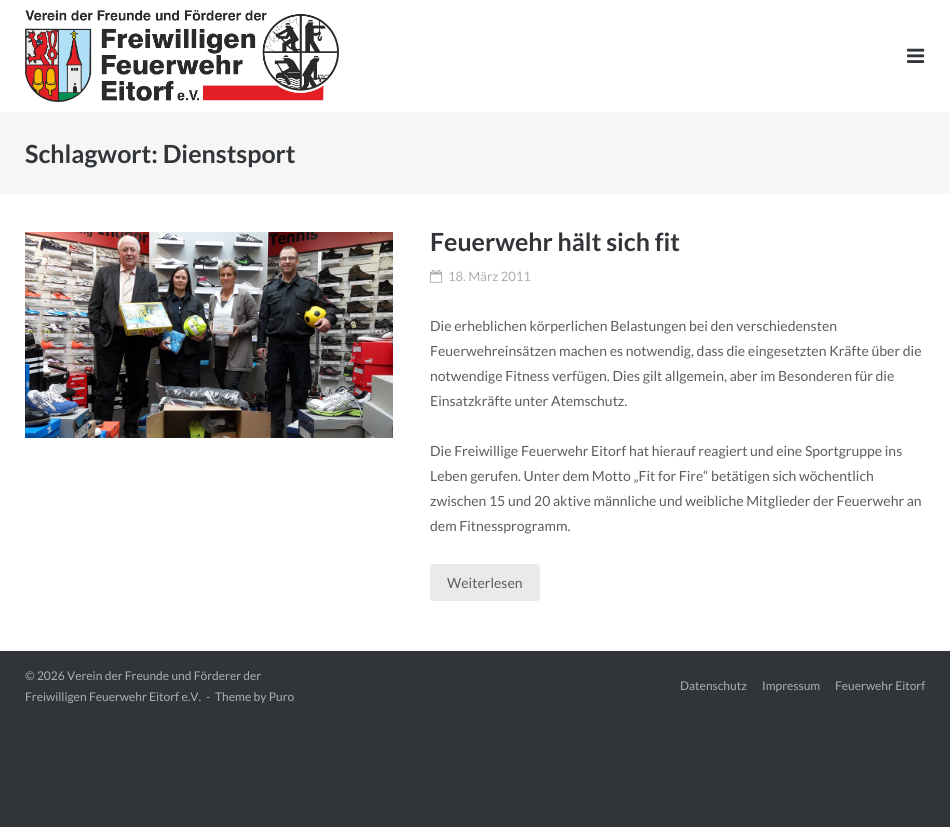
#include <cairo.h>
#include <math.h>
#include <stddef.h>


static void rgb(cairo_t *cr, int r, int g, int b)
{
	cairo_set_source_rgb(cr, r / 255.0, g / 255.0, b / 255.0);
}

static void face(cairo_t *cr, const char *family, double size, int italic, int bold)
{
	cairo_select_font_face(cr, family, italic ? CAIRO_FONT_SLANT_ITALIC : CAIRO_FONT_SLANT_NORMAL,
		bold ? CAIRO_FONT_WEIGHT_BOLD : CAIRO_FONT_WEIGHT_NORMAL);
	cairo_set_font_size(cr, size);
}

static void label(cairo_t *cr, double x, double y, const char *s)
{
	cairo_move_to(cr, x, y);
	cairo_show_text(cr, s);
}

static void rect(cairo_t *cr, double x, double y, double w, double h)
{
	cairo_rectangle(cr, x, y, w, h);
	cairo_fill(cr);
}

static void rrect(cairo_t *cr, double x, double y, double w, double h, double r)
{
	cairo_new_sub_path(cr);
	cairo_arc(cr, x + w - r, y + h - r, r, 0, M_PI / 2);
	cairo_arc(cr, x + r, y + h - r, r, M_PI / 2, M_PI);
	cairo_arc(cr, x + r, y + r, r, M_PI, 1.5 * M_PI);
	cairo_arc(cr, x + w - r, y + r, r, 1.5 * M_PI, 2 * M_PI);
	cairo_close_path(cr);
}

static void image(cairo_t *cr, const char *path, double x, double y, double w, double h)
{
	cairo_surface_t *image = cairo_image_surface_create_from_png(path);
	cairo_save(cr);
	cairo_set_source_surface(cr, image, x, y);
	cairo_rectangle(cr, x, y, w, h);
	cairo_fill(cr);
	cairo_restore(cr);
	cairo_surface_destroy(image);
}

static void draw(cairo_t *cr) {
	rgb(cr, 49, 53, 57);
	cairo_paint(cr);
	rgb(cr, 255, 255, 255);
	rect(cr, 0, 0, 950, 651);
	image(cr, "image0.png", 25, 10, 314, 92);
	image(cr, "image1.png", 907, 48, 18, 15);
	rgb(cr, 246, 246, 247);
	rect(cr, 0, 112, 950, 82);
	face(cr, "Lato", 25, 0, 1);
	rgb(cr, 49, 53, 57);
	label(cr, 25, 163, "Schlagwort: Dienstsport");
	image(cr, "image2.png", 25, 232, 368, 206);
	label(cr, 430, 251, "Feuerwehr hält sich fit");
	image(cr, "image3.png", 430, 269, 13, 14);
	face(cr, "Lato", 13, 0, 0);
	rgb(cr, 172, 174, 175);
	label(cr, 448, 281, "18. März 2011");
	face(cr, "Lato", 14, 0, 0);
	rgb(cr, 90, 93, 96);
	label(cr, 430, 331, "Die erheblichen körperlichen Belastungen bei den verschiedensten");
	label(cr, 430, 356, "Feuerwehreinsätzen machen es notwendig, dass die eingesetzten Kräfte über die");
	label(cr, 430, 381, "notwendige Fitness verfügen. Dies gilt allgemein, aber im Besonderen für die");
	label(cr, 430, 406, "Einsatzkräfte unter Atemschutz.");
	label(cr, 430, 456, "Die Freiwillige Feuerwehr Eitorf hat hierauf reagiert und eine Sportgruppe ins");
	label(cr, 430, 481, "Leben gerufen. Unter dem Motto „Fit for Fire“ betätigen sich wöchentlich");
	label(cr, 430, 506, "zwischen 15 und 20 aktive männliche und weibliche Mitglieder der Feuerwehr an");
	label(cr, 430, 531, "dem Fitnessprogramm.");
	rgb(cr, 234, 234, 234);
	rrect(cr, 430, 564, 110, 37, 3);
	cairo_fill(cr);
	rgb(cr, 90, 93, 96);
	label(cr, 447, 588, "Weiterlesen");
	face(cr, "Lato", 12, 0, 0);
	rgb(cr, 172, 174, 175);
	label(cr, 25, 680, "© 2026 Verein der Freunde und Förderer der");
	label(cr, 25, 701, "Freiwilligen Feuerwehr Eitorf e.V.");
	label(cr, 206, 701, "-");
	label(cr, 215, 701, "Theme by Puro");
	label(cr, 680, 690, "Datenschutz");
	label(cr, 762, 690, "Impressum");
	label(cr, 835, 690, "Feuerwehr Eitorf");
}

int main(void) {
	cairo_surface_t *surface = cairo_image_surface_create(CAIRO_FORMAT_RGB24, 950, 827);
	cairo_t *cr = cairo_create(surface);
	cairo_font_options_t *options = cairo_font_options_create();
	cairo_font_options_set_hint_metrics(options, CAIRO_HINT_METRICS_OFF);
	cairo_font_options_set_hint_style(options, CAIRO_HINT_STYLE_NONE);
	cairo_set_font_options(cr, options);
	cairo_set_miter_limit(cr, 4);
	draw(cr);
	cairo_surface_write_to_png(surface, "render.png");
	cairo_font_options_destroy(options);
	cairo_destroy(cr);
	cairo_surface_destroy(surface);
	return 0;
}
